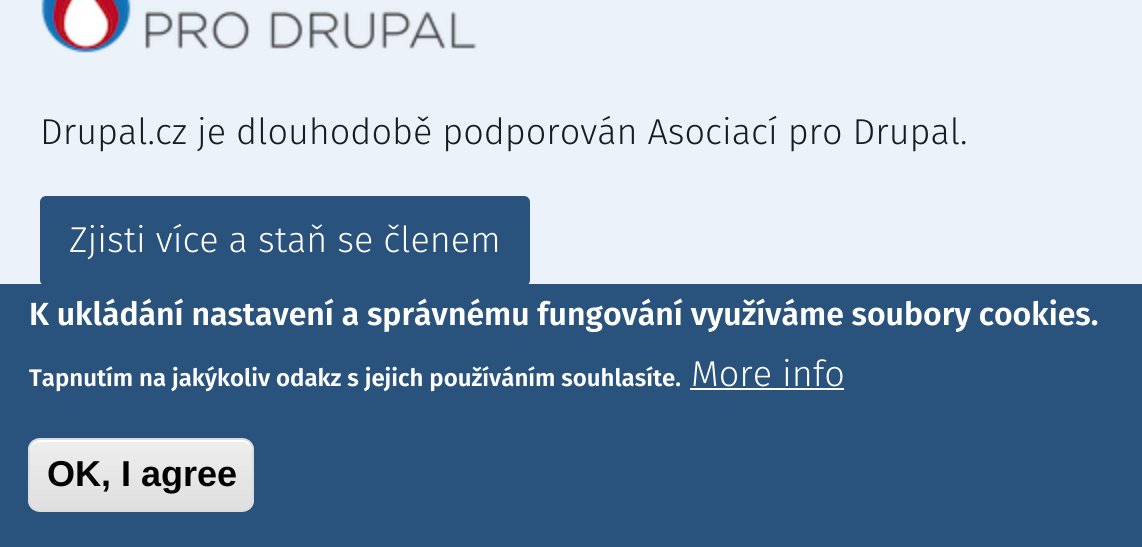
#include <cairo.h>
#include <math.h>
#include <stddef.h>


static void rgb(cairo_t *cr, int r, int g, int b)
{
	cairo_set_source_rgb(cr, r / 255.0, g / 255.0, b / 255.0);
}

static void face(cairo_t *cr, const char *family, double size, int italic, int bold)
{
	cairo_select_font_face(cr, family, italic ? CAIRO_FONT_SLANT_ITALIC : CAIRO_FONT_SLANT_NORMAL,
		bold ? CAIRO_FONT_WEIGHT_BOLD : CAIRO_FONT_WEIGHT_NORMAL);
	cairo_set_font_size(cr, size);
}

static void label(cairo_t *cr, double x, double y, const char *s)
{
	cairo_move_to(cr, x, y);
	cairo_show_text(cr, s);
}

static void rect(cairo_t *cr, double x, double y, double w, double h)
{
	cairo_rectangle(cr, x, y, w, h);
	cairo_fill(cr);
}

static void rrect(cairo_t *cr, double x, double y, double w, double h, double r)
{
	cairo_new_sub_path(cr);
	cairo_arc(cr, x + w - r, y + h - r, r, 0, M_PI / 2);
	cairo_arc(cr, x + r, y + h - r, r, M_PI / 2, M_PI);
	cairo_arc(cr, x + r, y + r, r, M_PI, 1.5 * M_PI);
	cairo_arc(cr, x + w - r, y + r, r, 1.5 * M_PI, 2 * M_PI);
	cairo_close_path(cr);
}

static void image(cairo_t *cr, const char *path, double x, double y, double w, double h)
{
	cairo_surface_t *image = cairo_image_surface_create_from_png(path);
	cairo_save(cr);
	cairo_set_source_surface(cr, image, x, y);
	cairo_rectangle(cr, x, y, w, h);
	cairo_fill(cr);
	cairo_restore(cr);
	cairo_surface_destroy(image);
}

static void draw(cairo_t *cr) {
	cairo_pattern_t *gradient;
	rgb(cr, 235, 242, 249);
	cairo_paint(cr);
	image(cr, "image0.png", 41, 0, 436, 53);
	face(cr, "Fira Sans Light", 36, 0, 0);
	rgb(cr, 22, 28, 33);
	label(cr, 40, 144, "Drupal.cz je dlouhodobě podporován Asociací pro Drupal.");
	rgb(cr, 41, 83, 125);
	rrect(cr, 40, 196, 490, 90, 6);
	cairo_fill(cr);
	rgb(cr, 255, 255, 255);
	label(cr, 69, 252, "Zjisti více a staň se členem");
	rgb(cr, 41, 83, 125);
	rect(cr, 0, 284, 1142, 263);
	face(cr, "Fira Sans SemiBold", 32, 0, 0);
	rgb(cr, 255, 255, 255);
	label(cr, 29, 325, "K ukládání nastavení a správnému fungování využíváme soubory cookies.");
	face(cr, "Fira Sans SemiBold", 24, 0, 0);
	label(cr, 29, 386, "Tapnutím na jakýkoliv odakz s jejich používáním souhlasíte.");
	face(cr, "Fira Sans Light", 36, 0, 0);
	label(cr, 691, 386, "More info");
	rect(cr, 690, 388, 154, 2);
	cairo_save(cr);
	rrect(cr, 28, 438, 226, 74, 12);
	cairo_clip(cr);
	gradient = cairo_pattern_create_linear(141, 440, 141, 510);
	cairo_pattern_add_color_stop_rgba(gradient, 0.05, 0.929, 0.929, 0.929, 1);
	cairo_pattern_add_color_stop_rgba(gradient, 1, 0.875, 0.875, 0.875, 1);
	cairo_set_source(cr, gradient);
	cairo_pattern_destroy(gradient);
	rect(cr, 28, 440, 226, 70);
	cairo_restore(cr);
	cairo_new_path(cr);
	cairo_move_to(cr, 40, 442);
	cairo_line_to(cr, 242, 442);
	cairo_curve_to(cr, 248, 442, 252, 446, 252, 452);
	cairo_line_to(cr, 252, 450);
	cairo_curve_to(cr, 252, 444, 248, 440, 242, 440);
	cairo_line_to(cr, 40, 440);
	cairo_curve_to(cr, 34, 440, 30, 444, 30, 450);
	cairo_line_to(cr, 30, 452);
	cairo_curve_to(cr, 30, 446, 34, 442, 40, 442);
	cairo_close_path(cr);
	cairo_fill(cr);
	rrect(cr, 29, 439, 224, 72, 11);
	rgb(cr, 220, 220, 220);
	cairo_stroke(cr);
	face(cr, "Liberation Sans", 36, 0, 1);
	rgb(cr, 0, 0, 0);
	label(cr, 47, 486, "OK, I agree");
}

int main(void) {
	cairo_surface_t *surface = cairo_image_surface_create(CAIRO_FORMAT_RGB24, 1142, 547);
	cairo_t *cr = cairo_create(surface);
	cairo_font_options_t *options = cairo_font_options_create();
	cairo_font_options_set_hint_metrics(options, CAIRO_HINT_METRICS_OFF);
	cairo_font_options_set_hint_style(options, CAIRO_HINT_STYLE_NONE);
	cairo_set_font_options(cr, options);
	cairo_set_miter_limit(cr, 4);
	draw(cr);
	cairo_surface_write_to_png(surface, "render.png");
	cairo_font_options_destroy(options);
	cairo_destroy(cr);
	cairo_surface_destroy(surface);
	return 0;
}
